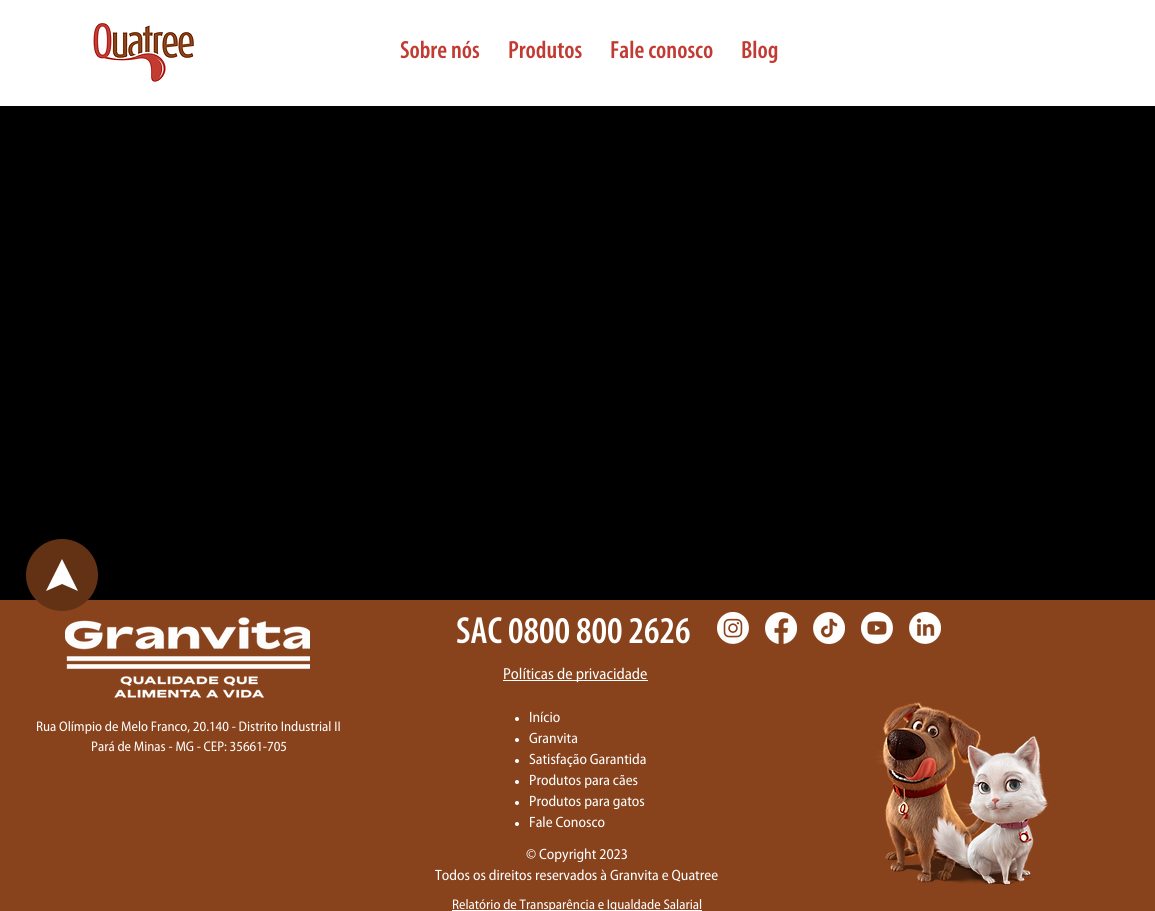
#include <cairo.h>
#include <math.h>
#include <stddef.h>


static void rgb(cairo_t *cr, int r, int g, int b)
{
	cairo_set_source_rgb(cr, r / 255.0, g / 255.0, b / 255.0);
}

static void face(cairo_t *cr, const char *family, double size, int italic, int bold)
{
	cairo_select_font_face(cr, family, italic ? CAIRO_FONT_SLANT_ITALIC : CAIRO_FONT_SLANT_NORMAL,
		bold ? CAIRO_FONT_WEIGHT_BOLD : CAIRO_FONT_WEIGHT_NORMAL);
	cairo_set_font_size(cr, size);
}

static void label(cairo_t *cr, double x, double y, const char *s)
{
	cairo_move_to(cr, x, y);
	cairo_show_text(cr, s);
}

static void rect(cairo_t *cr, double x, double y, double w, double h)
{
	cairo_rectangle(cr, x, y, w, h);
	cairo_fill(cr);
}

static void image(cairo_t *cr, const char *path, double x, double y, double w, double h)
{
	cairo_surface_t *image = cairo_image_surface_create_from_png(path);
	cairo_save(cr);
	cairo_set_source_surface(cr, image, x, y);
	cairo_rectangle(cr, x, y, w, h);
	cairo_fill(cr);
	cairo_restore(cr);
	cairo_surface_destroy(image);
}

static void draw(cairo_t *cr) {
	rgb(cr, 0, 0, 0);
	cairo_paint(cr);
	rgb(cr, 255, 255, 255);
	rect(cr, 0, 0, 1155, 106);
	image(cr, "image0.png", 93, 23, 101, 59);
	face(cr, "Myriad SemiBold", 25, 0, 0);
	rgb(cr, 194, 59, 51);
	label(cr, 400, 58, "Sobre nós");
	label(cr, 508, 58, "Produtos");
	label(cr, 610, 58, "Fale conosco");
	label(cr, 741, 58, "Blog");
	rgb(cr, 136, 67, 29);
	rect(cr, 0, 600, 1155, 311);
	rgb(cr, 99, 50, 21);
	cairo_new_path(cr);
	cairo_arc(cr, 62, 575, 36, 0, 2 * M_PI);
	cairo_fill(cr);
	rgb(cr, 255, 255, 255);
	cairo_new_path(cr);
	cairo_move_to(cr, 78, 591);
	cairo_line_to(cr, 62, 584);
	cairo_line_to(cr, 46, 591);
	cairo_line_to(cr, 62, 559);
	cairo_close_path(cr);
	cairo_fill(cr);
	image(cr, "image1.png", 65, 617, 245, 81);
	face(cr, "Myriad", 14, 0, 0);
	label(cr, 36, 731, "Rua Olímpio de Melo Franco, 20.140 - Distrito Industrial II");
	label(cr, 91, 751, "Pará de Minas - MG - CEP: 35661-705");
	face(cr, "Myriad SemiBold", 38, 0, 0);
	label(cr, 456, 643, "SAC 0800 800 2626");
	rect(cr, 503, 680, 145, 1);
	face(cr, "Myriad", 16, 0, 0);
	label(cr, 503, 679, "Políticas de privacidade");
	cairo_new_path(cr);
	cairo_arc(cr, 517, 719, 2, 0, 2 * M_PI);
	cairo_fill(cr);
	face(cr, "Myriad", 15, 0, 0);
	label(cr, 529, 722, "Início");
	cairo_new_path(cr);
	cairo_arc(cr, 517, 740, 2, 0, 2 * M_PI);
	cairo_fill(cr);
	label(cr, 529, 743, "Granvita");
	cairo_new_path(cr);
	cairo_arc(cr, 517, 761, 2, 0, 2 * M_PI);
	cairo_fill(cr);
	label(cr, 529, 764, "Satisfação Garantida");
	cairo_new_path(cr);
	cairo_arc(cr, 517, 782, 2, 0, 2 * M_PI);
	cairo_fill(cr);
	label(cr, 529, 785, "Produtos para cães");
	cairo_new_path(cr);
	cairo_arc(cr, 517, 803, 2, 0, 2 * M_PI);
	cairo_fill(cr);
	label(cr, 529, 806, "Produtos para gatos");
	cairo_new_path(cr);
	cairo_arc(cr, 517, 824, 2, 0, 2 * M_PI);
	cairo_fill(cr);
	label(cr, 529, 827, "Fale Conosco");
	label(cr, 526, 859, "© Copyright 2023");
	label(cr, 435, 880, "Todos os direitos reservados à Granvita e Quatree");
	rect(cr, 452, 910, 250, 1);
	face(cr, "Myriad", 14, 0, 0);
	label(cr, 452, 909, "Relatório de Transparência e Igualdade Salarial");
	image(cr, "image2.png", 717, 612, 32, 32);
	image(cr, "image3.png", 765, 612, 32, 32);
	image(cr, "image4.png", 813, 612, 32, 32);
	image(cr, "image5.png", 861, 612, 32, 32);
	image(cr, "image6.png", 909, 612, 32, 32);
	image(cr, "image7.png", 876, 702, 174, 183);
}

int main(void) {
	cairo_surface_t *surface = cairo_image_surface_create(CAIRO_FORMAT_RGB24, 1155, 911);
	cairo_t *cr = cairo_create(surface);
	cairo_font_options_t *options = cairo_font_options_create();
	cairo_font_options_set_hint_metrics(options, CAIRO_HINT_METRICS_OFF);
	cairo_font_options_set_hint_style(options, CAIRO_HINT_STYLE_NONE);
	cairo_set_font_options(cr, options);
	cairo_set_miter_limit(cr, 4);
	draw(cr);
	cairo_surface_write_to_png(surface, "render.png");
	cairo_font_options_destroy(options);
	cairo_destroy(cr);
	cairo_surface_destroy(surface);
	return 0;
}
